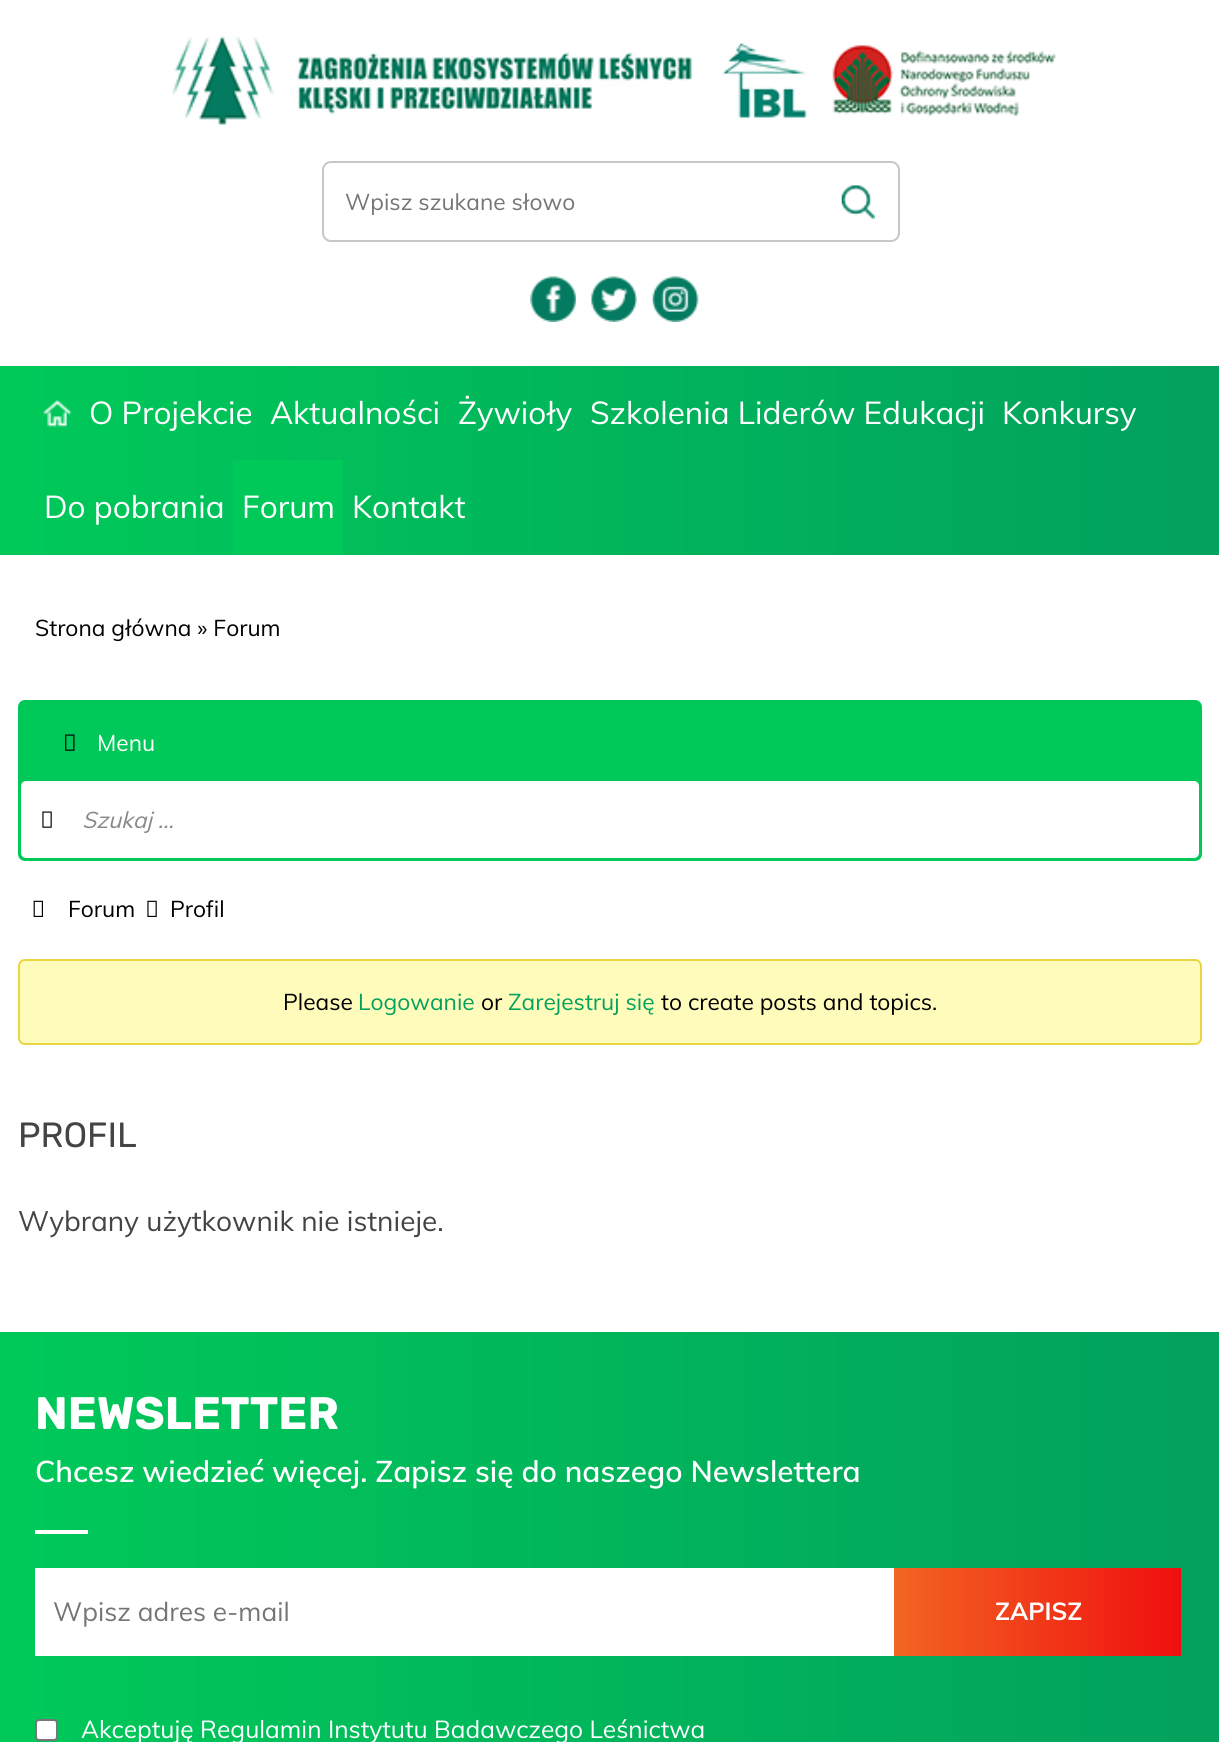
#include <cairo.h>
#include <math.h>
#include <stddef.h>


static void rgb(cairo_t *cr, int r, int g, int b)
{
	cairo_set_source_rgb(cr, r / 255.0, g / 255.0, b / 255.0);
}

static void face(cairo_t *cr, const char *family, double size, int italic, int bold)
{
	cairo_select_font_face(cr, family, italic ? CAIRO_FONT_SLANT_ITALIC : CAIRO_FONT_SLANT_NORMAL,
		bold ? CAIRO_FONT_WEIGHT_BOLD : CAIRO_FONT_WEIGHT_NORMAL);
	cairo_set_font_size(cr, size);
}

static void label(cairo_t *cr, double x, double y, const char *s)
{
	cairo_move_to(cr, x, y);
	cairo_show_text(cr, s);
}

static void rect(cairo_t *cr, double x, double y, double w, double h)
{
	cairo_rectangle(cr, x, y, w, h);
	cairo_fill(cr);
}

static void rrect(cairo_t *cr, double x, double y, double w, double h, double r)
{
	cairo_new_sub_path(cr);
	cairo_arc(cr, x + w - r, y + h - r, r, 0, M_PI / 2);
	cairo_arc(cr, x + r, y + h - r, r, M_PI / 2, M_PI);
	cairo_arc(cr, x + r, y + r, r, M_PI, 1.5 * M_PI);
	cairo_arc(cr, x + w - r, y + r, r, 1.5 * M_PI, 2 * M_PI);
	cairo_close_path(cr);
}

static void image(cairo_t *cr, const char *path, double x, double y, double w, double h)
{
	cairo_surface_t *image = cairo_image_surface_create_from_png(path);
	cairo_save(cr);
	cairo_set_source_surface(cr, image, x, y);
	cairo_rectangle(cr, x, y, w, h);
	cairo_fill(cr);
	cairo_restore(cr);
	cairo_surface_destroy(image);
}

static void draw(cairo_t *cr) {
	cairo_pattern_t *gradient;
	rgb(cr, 255, 255, 255);
	cairo_paint(cr);
	image(cr, "image0.png", 171, 36, 521, 89);
	image(cr, "image1.png", 722, 43, 85, 76);
	image(cr, "image2.png", 832, 45, 224, 71);
	rrect(cr, 323, 162, 576, 79, 8);
	rgb(cr, 199, 199, 199);
	cairo_stroke(cr);
	face(cr, "Muli", 22.75, 0, 0);
	rgb(cr, 117, 117, 117);
	label(cr, 345, 210, "Wpisz szukane słowo");
	image(cr, "image3.png", 841, 185, 34, 34);
	image(cr, "image4.png", 530, 276, 46, 46);
	image(cr, "image5.png", 591, 276, 46, 46);
	image(cr, "image6.png", 652, 276, 47, 46);
	gradient = cairo_pattern_create_linear(0, 460, 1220, 460);
	cairo_pattern_add_color_stop_rgba(gradient, 0, 0, 0.788, 0.349, 1);
	cairo_pattern_add_color_stop_rgba(gradient, 1, 0.008, 0.631, 0.365, 1);
	cairo_set_source(cr, gradient);
	cairo_pattern_destroy(gradient);
	rect(cr, 0, 366, 1219, 189);
	image(cr, "image7.png", 43, 400, 29, 27);
	face(cr, "Muli", 31.5, 0, 0);
	rgb(cr, 255, 255, 255);
	label(cr, 89, 424, "O Projekcie");
	label(cr, 270, 424, "Aktualności");
	label(cr, 458, 424, "Żywioły");
	label(cr, 590, 424, "Szkolenia Liderów Edukacji");
	label(cr, 1002, 424, "Konkursy");
	label(cr, 44, 518, "Do pobrania");
	rgb(cr, 0, 201, 89);
	rect(cr, 233, 460, 110, 95);
	rgb(cr, 255, 255, 255);
	label(cr, 242, 518, "Forum");
	label(cr, 352, 518, "Kontakt");
	face(cr, "Muli", 22.75, 0, 0);
	rgb(cr, 0, 0, 0);
	label(cr, 35, 636, "Strona główna » Forum");
	rgb(cr, 0, 201, 89);
	rrect(cr, 18, 700, 1184, 161, 7);
	cairo_fill(cr);
	image(cr, "image8.png", 65, 734, 10, 17);
	rgb(cr, 255, 255, 255);
	label(cr, 97, 751, "Menu");
	rrect(cr, 21, 781, 1178, 77, 5);
	cairo_fill(cr);
	image(cr, "image9.png", 42, 811, 10, 17);
	face(cr, "Muli", 22.75, 1, 0);
	rgb(cr, 136, 136, 136);
	label(cr, 82, 828, "Szukaj ...");
	image(cr, "image10.png", 33, 900, 10, 17);
	face(cr, "Muli", 22.75, 0, 0);
	rgb(cr, 0, 0, 0);
	label(cr, 68, 917, "Forum");
	image(cr, "image11.png", 147, 900, 10, 17);
	label(cr, 170, 917, "Profil");
	rgb(cr, 255, 251, 187);
	rrect(cr, 19, 960, 1182, 84, 6);
	cairo_fill_preserve(cr);
	rgb(cr, 234, 214, 67);
	cairo_stroke(cr);
	rgb(cr, 0, 0, 0);
	label(cr, 283, 1010, "Please");
	rgb(cr, 2, 161, 93);
	label(cr, 358, 1010, "Logowanie");
	rgb(cr, 0, 0, 0);
	label(cr, 481, 1010, "or");
	rgb(cr, 2, 161, 93);
	label(cr, 508, 1010, "Zarejestruj się");
	rgb(cr, 0, 0, 0);
	label(cr, 661, 1010, "to create posts and topics.");
	face(cr, "Rubik", 35, 0, 0);
	rgb(cr, 68, 68, 68);
	label(cr, 18, 1147, "PROFIL");
	face(cr, "Muli", 28, 0, 0);
	label(cr, 18, 1231, "Wybrany użytkownik nie istnieje.");
	gradient = cairo_pattern_create_linear(0, 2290, 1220, 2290);
	cairo_pattern_add_color_stop_rgba(gradient, 0, 0, 0.788, 0.349, 1);
	cairo_pattern_add_color_stop_rgba(gradient, 1, 0.008, 0.631, 0.365, 1);
	cairo_set_source(cr, gradient);
	cairo_pattern_destroy(gradient);
	rect(cr, 0, 1332, 1219, 410);
	face(cr, "Rubik", 45.5, 0, 1);
	rgb(cr, 255, 255, 255);
	label(cr, 35, 1429, "NEWSLETTER");
	face(cr, "Muli SemiBold", 29.75, 0, 0);
	label(cr, 35, 1482, "Chcesz wiedzieć więcej. Zapisz się do naszego Newslettera");
	rect(cr, 35, 1530, 53, 4);
	rect(cr, 35, 1568, 859, 88);
	face(cr, "Muli", 26.25, 0, 0);
	rgb(cr, 117, 117, 117);
	label(cr, 53, 1621, "Wpisz adres e-mail");
	gradient = cairo_pattern_create_linear(894, 1612, 1181, 1612);
	cairo_pattern_add_color_stop_rgba(gradient, 0, 0.949, 0.396, 0.133, 1);
	cairo_pattern_add_color_stop_rgba(gradient, 1, 0.941, 0.059, 0.059, 1);
	cairo_set_source(cr, gradient);
	cairo_pattern_destroy(gradient);
	rect(cr, 894, 1568, 287, 88);
	face(cr, "Muli", 24.5, 0, 1);
	rgb(cr, 255, 255, 255);
	label(cr, 995, 1620, "ZAPISZ");
	rrect(cr, 36, 1720, 21, 20, 3);
	cairo_fill_preserve(cr);
	rgb(cr, 118, 118, 118);
	cairo_stroke(cr);
	face(cr, "Muli", 24.5, 0, 0);
	rgb(cr, 255, 255, 255);
	label(cr, 81, 1738, "Akceptuję Regulamin Instytutu Badawczego Leśnictwa");
}

int main(void) {
	cairo_surface_t *surface = cairo_image_surface_create(CAIRO_FORMAT_RGB24, 1219, 1742);
	cairo_t *cr = cairo_create(surface);
	cairo_font_options_t *options = cairo_font_options_create();
	cairo_font_options_set_hint_metrics(options, CAIRO_HINT_METRICS_OFF);
	cairo_font_options_set_hint_style(options, CAIRO_HINT_STYLE_NONE);
	cairo_set_font_options(cr, options);
	cairo_set_miter_limit(cr, 4);
	draw(cr);
	cairo_surface_write_to_png(surface, "render.png");
	cairo_font_options_destroy(options);
	cairo_destroy(cr);
	cairo_surface_destroy(surface);
	return 0;
}
